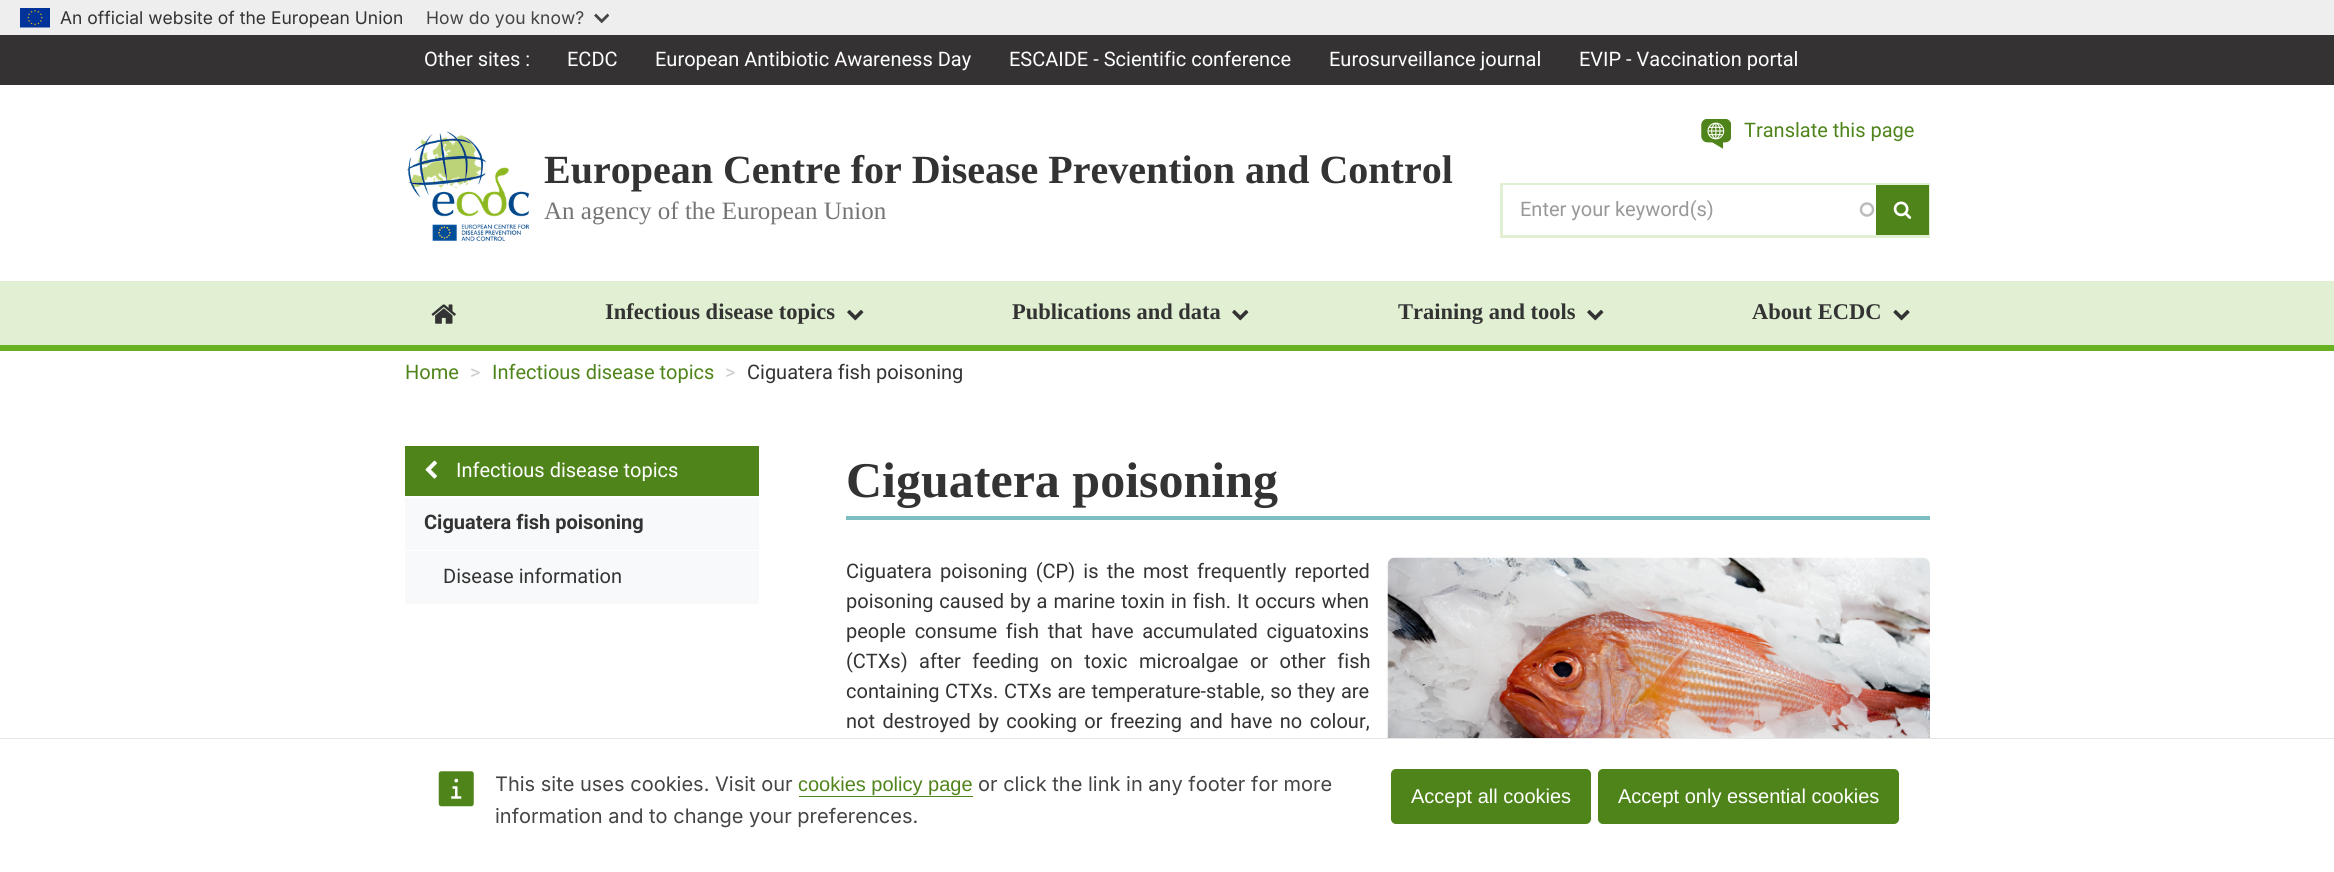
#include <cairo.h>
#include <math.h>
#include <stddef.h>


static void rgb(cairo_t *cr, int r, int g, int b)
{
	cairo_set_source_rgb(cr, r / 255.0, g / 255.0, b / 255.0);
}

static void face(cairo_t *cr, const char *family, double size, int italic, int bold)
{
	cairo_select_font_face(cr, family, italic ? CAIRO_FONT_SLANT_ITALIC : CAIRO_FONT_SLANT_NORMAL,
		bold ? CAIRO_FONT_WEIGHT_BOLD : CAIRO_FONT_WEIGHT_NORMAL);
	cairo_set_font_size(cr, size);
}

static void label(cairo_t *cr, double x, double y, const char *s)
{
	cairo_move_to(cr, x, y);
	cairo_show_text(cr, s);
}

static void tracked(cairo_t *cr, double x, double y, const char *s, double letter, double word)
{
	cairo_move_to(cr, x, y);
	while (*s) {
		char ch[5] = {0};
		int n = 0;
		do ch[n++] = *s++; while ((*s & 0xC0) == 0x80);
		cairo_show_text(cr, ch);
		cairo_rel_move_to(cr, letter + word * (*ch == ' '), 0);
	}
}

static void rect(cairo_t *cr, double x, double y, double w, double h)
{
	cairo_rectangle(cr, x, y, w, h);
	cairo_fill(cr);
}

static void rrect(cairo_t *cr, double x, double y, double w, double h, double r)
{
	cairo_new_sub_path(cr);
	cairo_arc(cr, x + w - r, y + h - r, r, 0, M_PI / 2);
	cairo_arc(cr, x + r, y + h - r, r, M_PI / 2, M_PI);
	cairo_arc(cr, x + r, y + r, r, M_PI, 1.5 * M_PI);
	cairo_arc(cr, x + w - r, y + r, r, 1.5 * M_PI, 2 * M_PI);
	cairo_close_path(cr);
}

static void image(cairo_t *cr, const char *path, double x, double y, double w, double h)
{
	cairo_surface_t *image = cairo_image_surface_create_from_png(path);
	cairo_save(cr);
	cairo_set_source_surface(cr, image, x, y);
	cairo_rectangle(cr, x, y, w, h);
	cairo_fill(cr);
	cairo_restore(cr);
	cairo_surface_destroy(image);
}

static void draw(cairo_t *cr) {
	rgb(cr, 255, 255, 255);
	cairo_paint(cr);
	rgb(cr, 238, 238, 238);
	rect(cr, 0, 0, 2334, 35);
	image(cr, "image0.png", 20, 8, 30, 20);
	face(cr, "Inter", 17.5, 0, 0);
	rgb(cr, 51, 51, 51);
	label(cr, 60, 24, "An official website of the European Union");
	rgb(cr, 68, 68, 68);
	label(cr, 426, 24, "How do you know?");
	image(cr, "image1.png", 594, 13, 15, 11);
	rgb(cr, 52, 50, 50);
	rect(cr, 0, 35, 2334, 50);
	face(cr, "Roboto", 20, 0, 0);
	rgb(cr, 255, 255, 255);
	label(cr, 424, 66, "Other sites :");
	label(cr, 567, 66, "ECDC");
	label(cr, 655, 66, "European Antibiotic Awareness Day");
	label(cr, 1009, 66, "ESCAIDE - Scientific conference");
	label(cr, 1329, 66, "Eurosurveillance journal");
	label(cr, 1579, 66, "EVIP - Vaccination portal");
	image(cr, "image2.png", 407, 131, 123, 111);
	face(cr, "Liberation Serif", 40, 0, 1);
	rgb(cr, 51, 51, 51);
	label(cr, 544, 183, "European Centre for Disease Prevention and Control");
	face(cr, "Liberation Serif", 25, 0, 0);
	rgb(cr, 117, 117, 117);
	label(cr, 544, 219, "An agency of the European Union");
	image(cr, "image3.png", 1701, 119, 30, 30);
	face(cr, "Roboto", 20, 0, 0);
	rgb(cr, 79, 132, 26);
	label(cr, 1744, 137, "Translate this page");
	cairo_rectangle(cr, 1501.5, 184.5, 427, 52);
	rgb(cr, 225, 239, 211);
	cairo_set_line_width(cr, 3);
	cairo_stroke(cr);
	rgb(cr, 255, 255, 255);
	rect(cr, 1503, 185, 373, 1);
	cairo_arc(cr, 1867, 209.5, 6, 0, 2 * M_PI);
	rgb(cr, 188, 188, 188);
	cairo_set_line_width(cr, 2.5);
	cairo_stroke(cr);
	rgb(cr, 153, 153, 153);
	label(cr, 1520, 216, "Enter your keyword(s)");
	rgb(cr, 79, 132, 26);
	rect(cr, 1876, 185, 53, 50);
	image(cr, "image4.png", 1893, 201, 19, 18);
	rgb(cr, 225, 239, 211);
	rect(cr, 0, 281, 2334, 64);
	image(cr, "image5.png", 431, 304, 25, 20);
	face(cr, "Liberation Serif", 22.5, 0, 1);
	rgb(cr, 51, 51, 51);
	label(cr, 605, 319, "Infectious disease topics");
	image(cr, "image6.png", 847, 310, 17, 11);
	label(cr, 1012, 319, "Publications and data");
	image(cr, "image6.png", 1232, 310, 17, 11);
	label(cr, 1398, 319, "Training and tools");
	image(cr, "image6.png", 1587, 310, 17, 11);
	label(cr, 1752, 319, "About ECDC");
	image(cr, "image7.png", 1893, 310, 17, 11);
	rgb(cr, 105, 176, 35);
	rect(cr, 0, 345, 2334, 6);
	face(cr, "Roboto", 20, 0, 0);
	rgb(cr, 79, 132, 26);
	label(cr, 405, 379, "Home");
	rgb(cr, 204, 204, 204);
	label(cr, 470, 379, ">");
	rgb(cr, 79, 132, 26);
	label(cr, 492, 379, "Infectious disease topics");
	rgb(cr, 204, 204, 204);
	label(cr, 725, 379, ">");
	rgb(cr, 51, 51, 51);
	label(cr, 747, 379, "Ciguatera fish poisoning");
	rgb(cr, 79, 132, 26);
	rect(cr, 405, 446, 354, 50);
	image(cr, "image8.png", 425, 460, 12, 19);
	rgb(cr, 255, 255, 255);
	label(cr, 456, 477, "Infectious disease topics");
	rgb(cr, 248, 249, 250);
	rect(cr, 405, 498, 354, 52);
	face(cr, "Roboto", 20, 0, 1);
	rgb(cr, 51, 51, 51);
	label(cr, 424, 529, "Ciguatera fish poisoning");
	rgb(cr, 248, 249, 250);
	rect(cr, 405, 551, 354, 53);
	face(cr, "Roboto", 20, 0, 0);
	rgb(cr, 51, 51, 51);
	label(cr, 443, 583, "Disease information");
	rgb(cr, 124, 189, 193);
	rect(cr, 846, 516, 1084, 4);
	face(cr, "Liberation Serif", 50, 0, 1);
	rgb(cr, 51, 51, 51);
	label(cr, 846, 497, "Ciguatera poisoning");
	face(cr, "Roboto", 20, 0, 0);
	tracked(cr, 846, 578, "Ciguatera poisoning (CP) is the most frequently reported", 0, 3.25);
	tracked(cr, 846, 608, "poisoning caused by a marine toxin in fish. It occurs when", 0, 1);
	tracked(cr, 846, 638, "people consume fish that have accumulated ciguatoxins", 0, 3.75);
	tracked(cr, 846, 668, "(CTXs) after feeding on toxic microalgae or other fish", 0, 6.5);
	tracked(cr, 846, 698, "containing CTXs. CTXs are temperature-stable, so they are", 0, 0.75);
	tracked(cr, 846, 728, "not destroyed by cooking or freezing and have no colour,", 0, 2.5);
	image(cr, "image9.png", 1387, 557, 543, 181);
	rgb(cr, 229, 229, 229);
	rect(cr, 0, 738, 2334, 1);
	image(cr, "image10.png", 438, 771, 36, 36);
	face(cr, "Inter", 20, 0, 0);
	rgb(cr, 68, 68, 68);
	label(cr, 495, 791, "This site uses cookies. Visit our");
	face(cr, "Liberation Sans", 20, 0, 0);
	rgb(cr, 79, 132, 26);
	label(cr, 798, 791, "cookies policy page");
	rect(cr, 799, 796, 174, 1);
	face(cr, "Inter", 20, 0, 0);
	rgb(cr, 68, 68, 68);
	label(cr, 978, 791, "or click the link in any footer for more");
	label(cr, 495, 823, "information and to change your preferences.");
	rgb(cr, 79, 132, 26);
	rrect(cr, 1391, 769, 200, 55, 5);
	cairo_fill(cr);
	face(cr, "Liberation Sans", 20, 0, 0);
	rgb(cr, 255, 255, 255);
	label(cr, 1411, 803, "Accept all cookies");
	rgb(cr, 79, 132, 26);
	rrect(cr, 1598, 769, 301, 55, 5);
	cairo_fill(cr);
	rgb(cr, 255, 255, 255);
	label(cr, 1618, 803, "Accept only essential cookies");
}

int main(void) {
	cairo_surface_t *surface = cairo_image_surface_create(CAIRO_FORMAT_RGB24, 2334, 872);
	cairo_t *cr = cairo_create(surface);
	cairo_font_options_t *options = cairo_font_options_create();
	cairo_font_options_set_hint_metrics(options, CAIRO_HINT_METRICS_OFF);
	cairo_font_options_set_hint_style(options, CAIRO_HINT_STYLE_NONE);
	cairo_set_font_options(cr, options);
	cairo_set_miter_limit(cr, 4);
	draw(cr);
	cairo_surface_write_to_png(surface, "render.png");
	cairo_font_options_destroy(options);
	cairo_destroy(cr);
	cairo_surface_destroy(surface);
	return 0;
}
